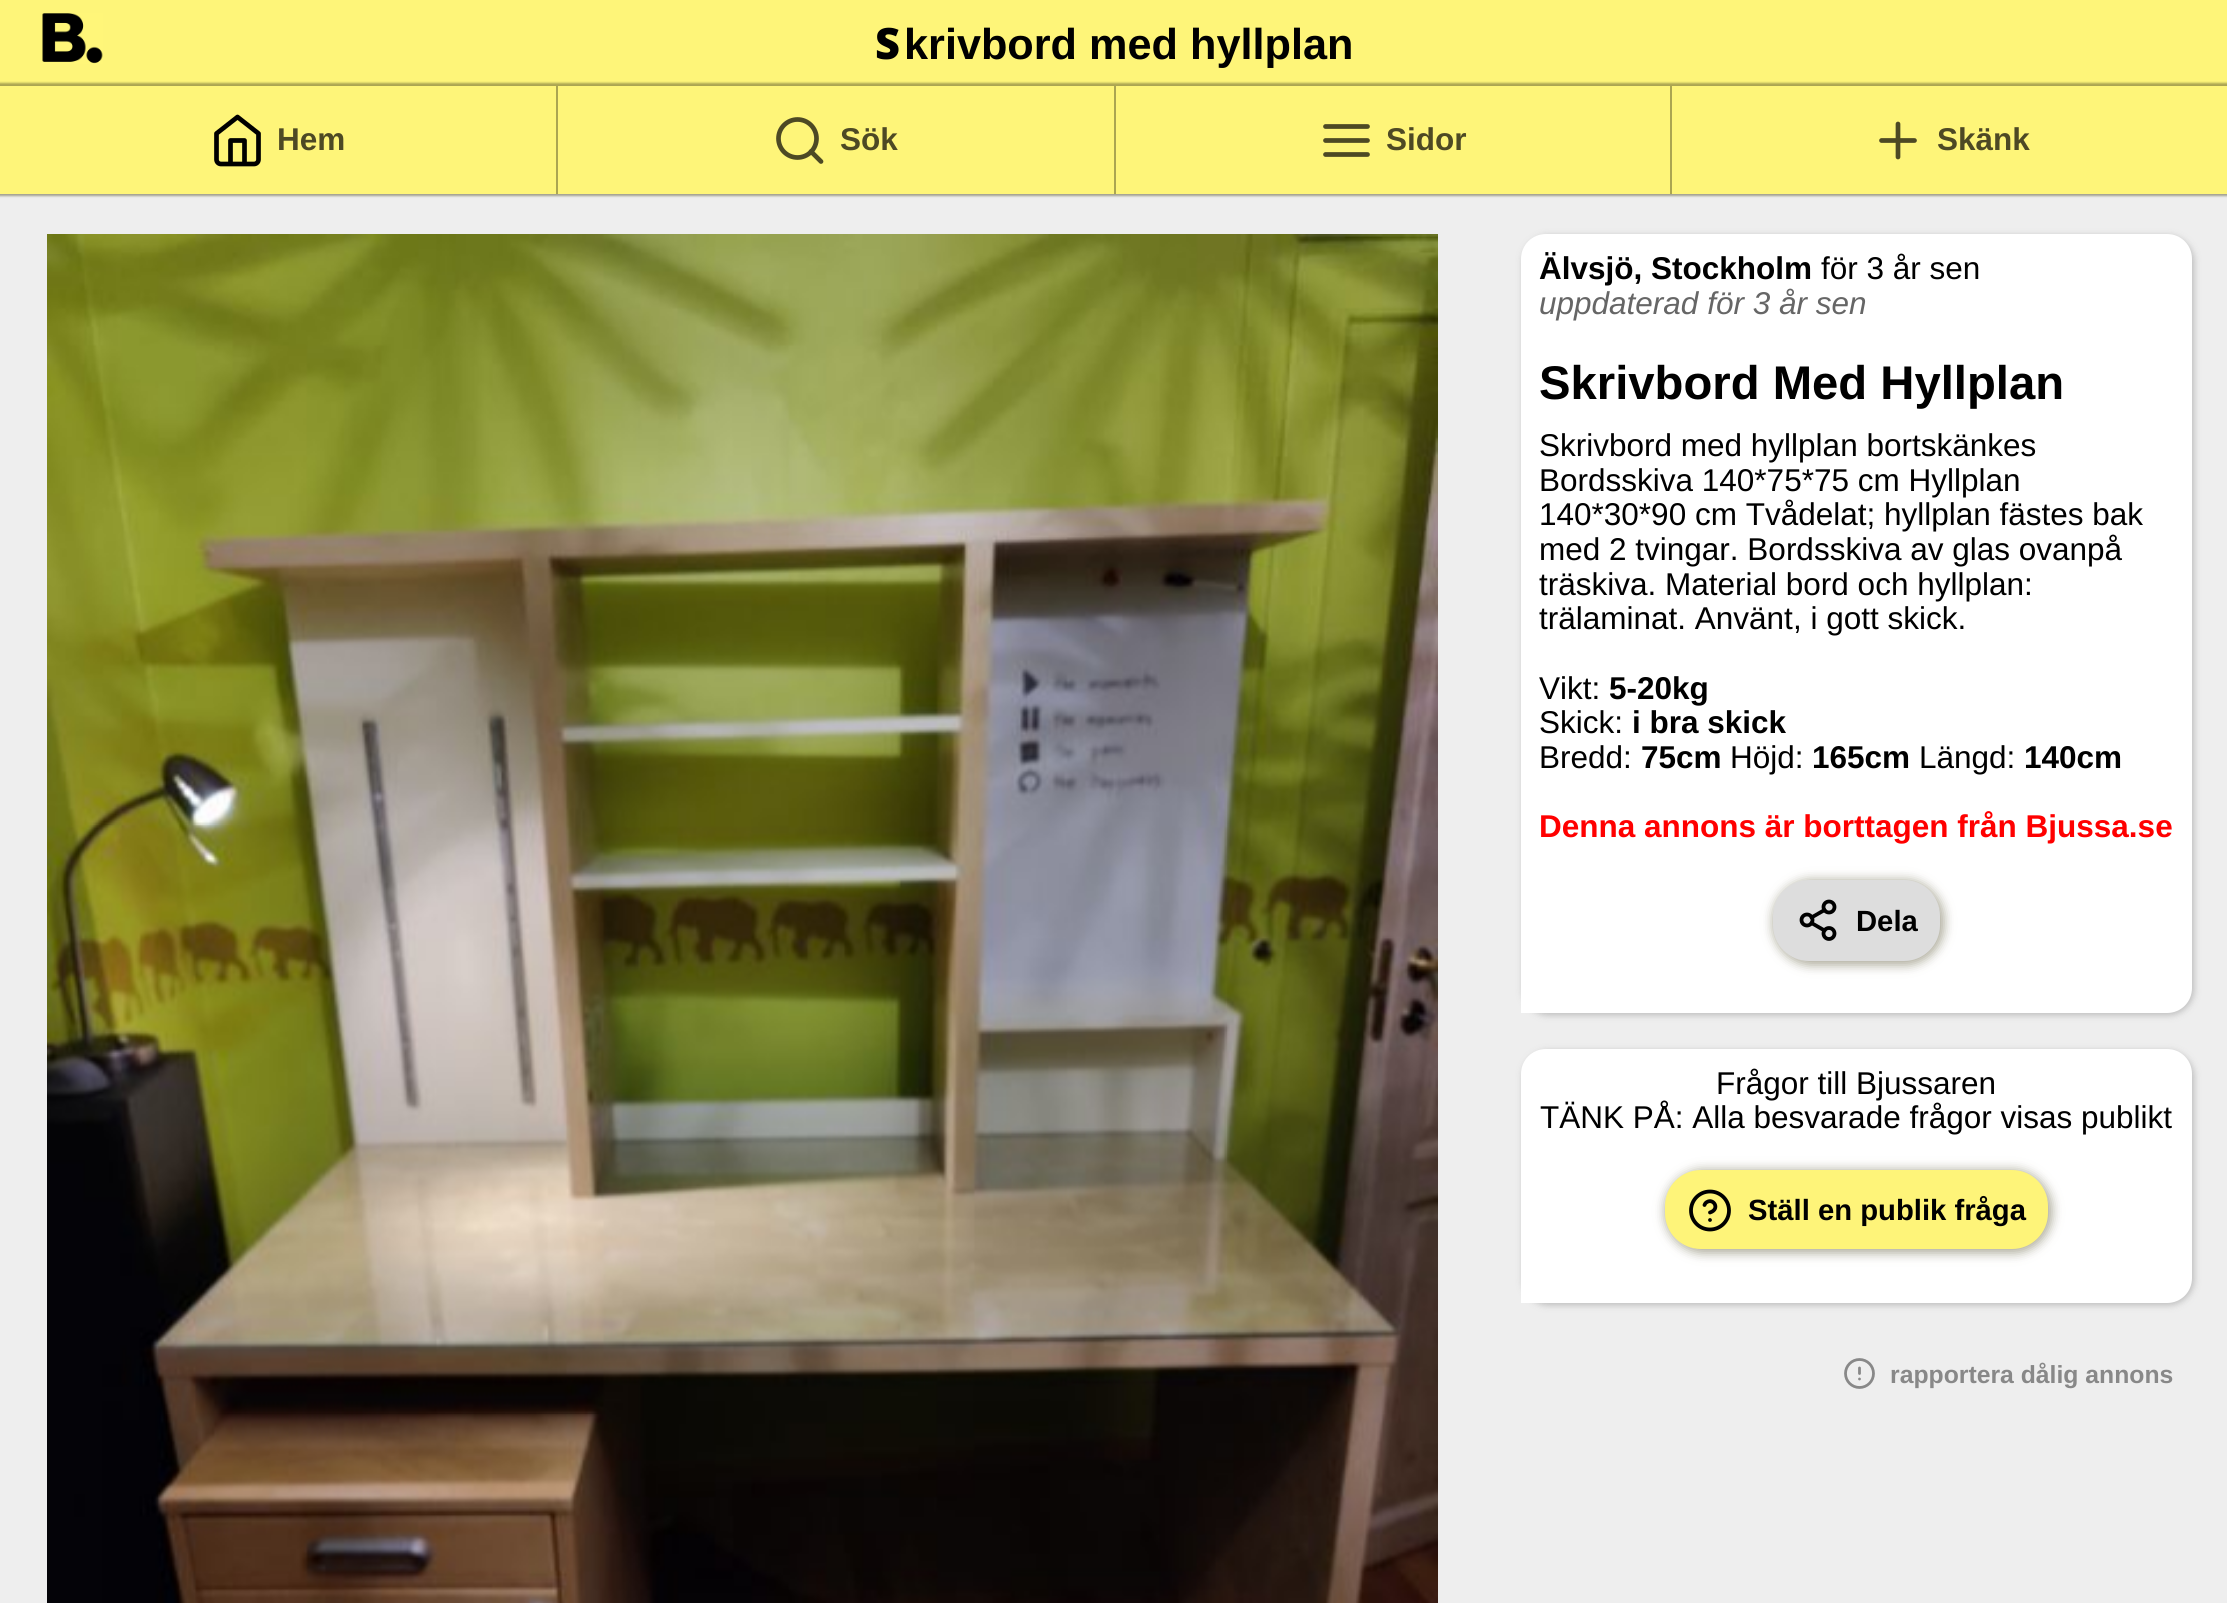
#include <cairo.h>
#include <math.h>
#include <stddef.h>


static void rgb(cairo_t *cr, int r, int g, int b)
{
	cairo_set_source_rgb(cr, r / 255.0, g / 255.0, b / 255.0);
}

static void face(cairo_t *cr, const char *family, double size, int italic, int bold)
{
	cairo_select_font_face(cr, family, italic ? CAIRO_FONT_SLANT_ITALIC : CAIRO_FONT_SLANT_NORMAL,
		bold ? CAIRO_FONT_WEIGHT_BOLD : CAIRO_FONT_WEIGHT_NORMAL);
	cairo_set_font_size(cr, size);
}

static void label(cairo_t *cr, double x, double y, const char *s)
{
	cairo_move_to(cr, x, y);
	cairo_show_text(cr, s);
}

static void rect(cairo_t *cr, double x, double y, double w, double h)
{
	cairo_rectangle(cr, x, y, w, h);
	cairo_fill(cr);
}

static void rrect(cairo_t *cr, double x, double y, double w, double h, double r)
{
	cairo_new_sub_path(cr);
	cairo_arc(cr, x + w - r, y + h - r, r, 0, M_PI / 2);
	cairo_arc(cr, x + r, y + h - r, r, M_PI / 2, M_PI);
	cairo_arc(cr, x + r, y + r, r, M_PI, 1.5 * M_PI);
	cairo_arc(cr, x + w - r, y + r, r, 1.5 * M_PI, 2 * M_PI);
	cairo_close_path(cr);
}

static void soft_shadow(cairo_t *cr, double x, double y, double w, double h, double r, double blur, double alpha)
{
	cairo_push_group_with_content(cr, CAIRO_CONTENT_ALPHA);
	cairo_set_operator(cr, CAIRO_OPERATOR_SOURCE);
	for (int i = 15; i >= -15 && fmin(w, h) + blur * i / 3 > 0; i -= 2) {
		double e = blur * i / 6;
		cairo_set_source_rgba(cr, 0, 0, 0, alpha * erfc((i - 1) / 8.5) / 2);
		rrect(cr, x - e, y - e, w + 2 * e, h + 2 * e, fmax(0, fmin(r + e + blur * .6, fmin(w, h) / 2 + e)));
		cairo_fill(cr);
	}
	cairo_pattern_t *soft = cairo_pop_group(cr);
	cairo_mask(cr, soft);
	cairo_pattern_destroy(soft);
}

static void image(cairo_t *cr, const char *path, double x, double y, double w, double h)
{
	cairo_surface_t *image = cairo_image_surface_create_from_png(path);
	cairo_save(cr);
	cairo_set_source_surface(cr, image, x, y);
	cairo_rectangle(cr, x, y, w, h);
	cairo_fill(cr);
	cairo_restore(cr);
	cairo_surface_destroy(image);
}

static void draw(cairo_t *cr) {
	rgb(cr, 238, 238, 238);
	cairo_paint(cr);
	rgb(cr, 254, 245, 121);
	rect(cr, 0, 0, 2227, 86);
	image(cr, "image0.png", 42, 13, 61, 51);
	face(cr, "Noto Sans Black", 43.25, 0, 0);
	rgb(cr, 0, 0, 0);
	label(cr, 875, 59, "S");
	face(cr, "Liberation Sans", 43.25, 0, 1);
	label(cr, 904, 59, "krivbord med hyllplan");
	rgb(cr, 77, 73, 36);
	soft_shadow(cr, -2, 83, 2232, 113, 0, 1, 0.47);
	rgb(cr, 254, 245, 121);
	rect(cr, 0, 86, 2227, 108);
	rgb(cr, 171, 165, 81);
	rect(cr, 556, 86, 2, 108);
	cairo_new_path(cr);
	cairo_move_to(cr, 216.5, 133.5);
	cairo_line_to(cr, 237.5, 117);
	cairo_line_to(cr, 258.5, 133.5);
	cairo_line_to(cr, 258.5, 159.5);
	cairo_curve_to(cr, 258.5, 162, 256.5, 164, 254, 164);
	cairo_line_to(cr, 221, 164);
	cairo_curve_to(cr, 218.5, 164, 216.5, 162, 216.5, 159.5);
	cairo_close_path(cr);
	cairo_move_to(cr, 230.5, 164);
	cairo_line_to(cr, 230.5, 140.5);
	cairo_line_to(cr, 244.5, 140.5);
	cairo_line_to(cr, 244.5, 164);
	rgb(cr, 0, 0, 0);
	cairo_set_line_width(cr, 4.7);
	cairo_set_line_cap(cr, CAIRO_LINE_CAP_ROUND);
	cairo_set_line_join(cr, CAIRO_LINE_JOIN_ROUND);
	cairo_stroke(cr);
	face(cr, "Liberation Sans", 31.5, 0, 1);
	rgb(cr, 77, 73, 36);
	label(cr, 277, 150, "Hem");
	rgb(cr, 171, 165, 81);
	rect(cr, 1114, 86, 2, 108);
	cairo_new_path(cr);
	cairo_arc(cr, 797.5, 138.5, 19, 0, 2 * M_PI);
	rgb(cr, 77, 73, 36);
	cairo_set_line_cap(cr, CAIRO_LINE_CAP_BUTT);
	cairo_set_line_join(cr, CAIRO_LINE_JOIN_MITER);
	cairo_stroke(cr);
	cairo_new_path(cr);
	cairo_move_to(cr, 821, 161.5);
	cairo_line_to(cr, 811, 151.5);
	cairo_set_line_cap(cr, CAIRO_LINE_CAP_ROUND);
	cairo_set_line_join(cr, CAIRO_LINE_JOIN_ROUND);
	cairo_stroke(cr);
	label(cr, 840, 150, "Sök");
	rgb(cr, 171, 165, 81);
	rect(cr, 1670, 86, 2, 108);
	cairo_new_path(cr);
	cairo_move_to(cr, 1325.5, 140.5);
	cairo_line_to(cr, 1367.5, 140.5);
	cairo_move_to(cr, 1325.5, 126.5);
	cairo_line_to(cr, 1367.5, 126.5);
	cairo_move_to(cr, 1325.5, 154.5);
	cairo_line_to(cr, 1367.5, 154.5);
	rgb(cr, 77, 73, 36);
	cairo_stroke(cr);
	label(cr, 1386, 150, "Sidor");
	cairo_new_path(cr);
	cairo_move_to(cr, 1898, 124);
	cairo_line_to(cr, 1898, 157);
	cairo_move_to(cr, 1881.5, 140.5);
	cairo_line_to(cr, 1914.5, 140.5);
	cairo_stroke(cr);
	label(cr, 1937, 150, "Skänk");
	image(cr, "image1.png", 47, 234, 1391, 1369);
	rgb(cr, 187, 187, 187);
	soft_shadow(cr, 1523, 236, 671, 779, 25, 3.5, 1);
	rgb(cr, 255, 255, 255);
	cairo_new_path(cr);
	cairo_move_to(cr, 1546, 234);
	cairo_line_to(cr, 2167, 234);
	cairo_curve_to(cr, 2181, 234, 2192, 245, 2192, 259);
	cairo_line_to(cr, 2192, 988);
	cairo_curve_to(cr, 2192, 1002, 2181, 1013, 2167, 1013);
	cairo_line_to(cr, 1521, 1013);
	cairo_line_to(cr, 1521, 259);
	cairo_curve_to(cr, 1521, 245, 1532, 234, 1546, 234);
	cairo_close_path(cr);
	cairo_fill(cr);
	rgb(cr, 0, 0, 0);
	label(cr, 1539, 279, "Älvsjö, Stockholm");
	face(cr, "Liberation Sans", 31.5, 0, 0);
	label(cr, 1821, 279, "för 3 år sen");
	face(cr, "Liberation Sans", 31.5, 1, 0);
	rgb(cr, 102, 102, 102);
	label(cr, 1539, 314, "uppdaterad för 3 år sen");
	face(cr, "Liberation Sans", 47.25, 0, 1);
	rgb(cr, 0, 0, 0);
	label(cr, 1539, 399, "Skrivbord Med Hyllplan");
	face(cr, "Liberation Sans", 31.5, 0, 0);
	label(cr, 1539, 456, "Skrivbord med hyllplan bortskänkes");
	label(cr, 1539, 491, "Bordsskiva 140*75*75 cm Hyllplan");
	label(cr, 1539, 525, "140*30*90 cm Tvådelat; hyllplan fästes bak");
	label(cr, 1539, 560, "med 2 tvingar. Bordsskiva av glas ovanpå");
	label(cr, 1539, 595, "träskiva. Material bord och hyllplan:");
	label(cr, 1539, 629, "trälaminat. Använt, i gott skick.");
	label(cr, 1539, 699, "Vikt:");
	face(cr, "Liberation Sans", 31.5, 0, 1);
	label(cr, 1609, 699, "5-20kg");
	face(cr, "Liberation Sans", 31.5, 0, 0);
	label(cr, 1539, 733, "Skick:");
	face(cr, "Liberation Sans", 31.5, 0, 1);
	label(cr, 1632, 733, "i bra skick");
	face(cr, "Liberation Sans", 31.5, 0, 0);
	label(cr, 1539, 768, "Bredd:");
	face(cr, "Liberation Sans", 31.5, 0, 1);
	label(cr, 1641, 768, "75cm");
	face(cr, "Liberation Sans", 31.5, 0, 0);
	label(cr, 1730, 768, "Höjd:");
	face(cr, "Liberation Sans", 31.5, 0, 1);
	label(cr, 1812, 768, "165cm");
	face(cr, "Liberation Sans", 31.5, 0, 0);
	label(cr, 1919, 768, "Längd:");
	face(cr, "Liberation Sans", 31.5, 0, 1);
	label(cr, 2024, 768, "140cm");
	rgb(cr, 255, 0, 0);
	label(cr, 1539, 837, "Denna annons är borttagen från Bjussa.se");
	rgb(cr, 77, 73, 36);
	soft_shadow(cr, 1773, 880, 171, 85, 38, 5.5, 0.47);
	rgb(cr, 221, 221, 221);
	rrect(cr, 1773, 880, 167, 81, 36);
	cairo_fill(cr);
	cairo_arc(cr, 1829, 907, 5.5, 0, 2 * M_PI);
	rgb(cr, 0, 0, 0);
	cairo_set_line_width(cr, 3.8);
	cairo_set_line_cap(cr, CAIRO_LINE_CAP_BUTT);
	cairo_set_line_join(cr, CAIRO_LINE_JOIN_MITER);
	cairo_stroke(cr);
	cairo_arc(cr, 1807, 920, 5.5, 0, 2 * M_PI);
	cairo_stroke(cr);
	cairo_arc(cr, 1829, 933.5, 5.5, 0, 2 * M_PI);
	cairo_stroke(cr);
	cairo_new_path(cr);
	cairo_move_to(cr, 1811.5, 923);
	cairo_line_to(cr, 1824.5, 930.5);
	cairo_move_to(cr, 1824.5, 910);
	cairo_line_to(cr, 1811.5, 917.5);
	cairo_set_line_cap(cr, CAIRO_LINE_CAP_ROUND);
	cairo_set_line_join(cr, CAIRO_LINE_JOIN_ROUND);
	cairo_stroke(cr);
	face(cr, "Liberation Sans", 29.25, 0, 1);
	label(cr, 1856, 931, "Dela");
	rgb(cr, 187, 187, 187);
	soft_shadow(cr, 1523, 1051, 671, 254, 25, 3.5, 1);
	rgb(cr, 255, 255, 255);
	cairo_new_path(cr);
	cairo_move_to(cr, 1546, 1049);
	cairo_line_to(cr, 2167, 1049);
	cairo_curve_to(cr, 2181, 1049, 2192, 1060, 2192, 1074);
	cairo_line_to(cr, 2192, 1278);
	cairo_curve_to(cr, 2192, 1292, 2181, 1303, 2167, 1303);
	cairo_line_to(cr, 1521, 1303);
	cairo_line_to(cr, 1521, 1074);
	cairo_curve_to(cr, 1521, 1060, 1532, 1049, 1546, 1049);
	cairo_close_path(cr);
	cairo_fill(cr);
	face(cr, "Liberation Sans", 31.5, 0, 0);
	rgb(cr, 0, 0, 0);
	label(cr, 1716, 1094, "Frågor till Bjussaren");
	label(cr, 1540, 1128, "TÄNK PÅ: Alla besvarade frågor visas publikt");
	rgb(cr, 77, 73, 36);
	soft_shadow(cr, 1665, 1170, 387, 83, 38, 5.5, 0.47);
	rgb(cr, 254, 244, 121);
	rrect(cr, 1665, 1170, 383, 79, 36);
	cairo_fill(cr);
	cairo_arc(cr, 1710, 1210.5, 19, 0, 2 * M_PI);
	rgb(cr, 0, 0, 0);
	cairo_set_line_cap(cr, CAIRO_LINE_CAP_BUTT);
	cairo_set_line_join(cr, CAIRO_LINE_JOIN_MITER);
	cairo_stroke(cr);
	cairo_new_path(cr);
	cairo_move_to(cr, 1704.5, 1205);
	cairo_curve_to(cr, 1705, 1203.5, 1706, 1202.5, 1707, 1202);
	cairo_curve_to(cr, 1713.5, 1198, 1720.5, 1209, 1710, 1212.5);
	cairo_move_to(cr, 1710, 1220);
	cairo_line_to(cr, 1710, 1220);
	cairo_set_line_cap(cr, CAIRO_LINE_CAP_ROUND);
	cairo_set_line_join(cr, CAIRO_LINE_JOIN_ROUND);
	cairo_stroke(cr);
	face(cr, "Liberation Sans", 29.25, 0, 1);
	label(cr, 1748, 1220, "Ställ en publik fråga");
	cairo_new_path(cr);
	cairo_arc(cr, 1859.5, 1373.5, 14, 0, 2 * M_PI);
	rgb(cr, 136, 136, 136);
	cairo_set_line_width(cr, 2.8);
	cairo_set_line_cap(cr, CAIRO_LINE_CAP_BUTT);
	cairo_set_line_join(cr, CAIRO_LINE_JOIN_MITER);
	cairo_stroke(cr);
	cairo_new_path(cr);
	cairo_move_to(cr, 1859.5, 1368);
	cairo_line_to(cr, 1859.5, 1373.5);
	cairo_move_to(cr, 1859.5, 1379);
	cairo_line_to(cr, 1859.5, 1379);
	cairo_set_line_cap(cr, CAIRO_LINE_CAP_ROUND);
	cairo_set_line_join(cr, CAIRO_LINE_JOIN_ROUND);
	cairo_stroke(cr);
	face(cr, "Liberation Sans", 24.75, 0, 1);
	label(cr, 1890, 1383, "rapportera dålig annons");
}

int main(void) {
	cairo_surface_t *surface = cairo_image_surface_create(CAIRO_FORMAT_RGB24, 2227, 1603);
	cairo_t *cr = cairo_create(surface);
	cairo_font_options_t *options = cairo_font_options_create();
	cairo_font_options_set_hint_metrics(options, CAIRO_HINT_METRICS_OFF);
	cairo_font_options_set_hint_style(options, CAIRO_HINT_STYLE_NONE);
	cairo_set_font_options(cr, options);
	cairo_set_miter_limit(cr, 4);
	draw(cr);
	cairo_surface_write_to_png(surface, "render.png");
	cairo_font_options_destroy(options);
	cairo_destroy(cr);
	cairo_surface_destroy(surface);
	return 0;
}
